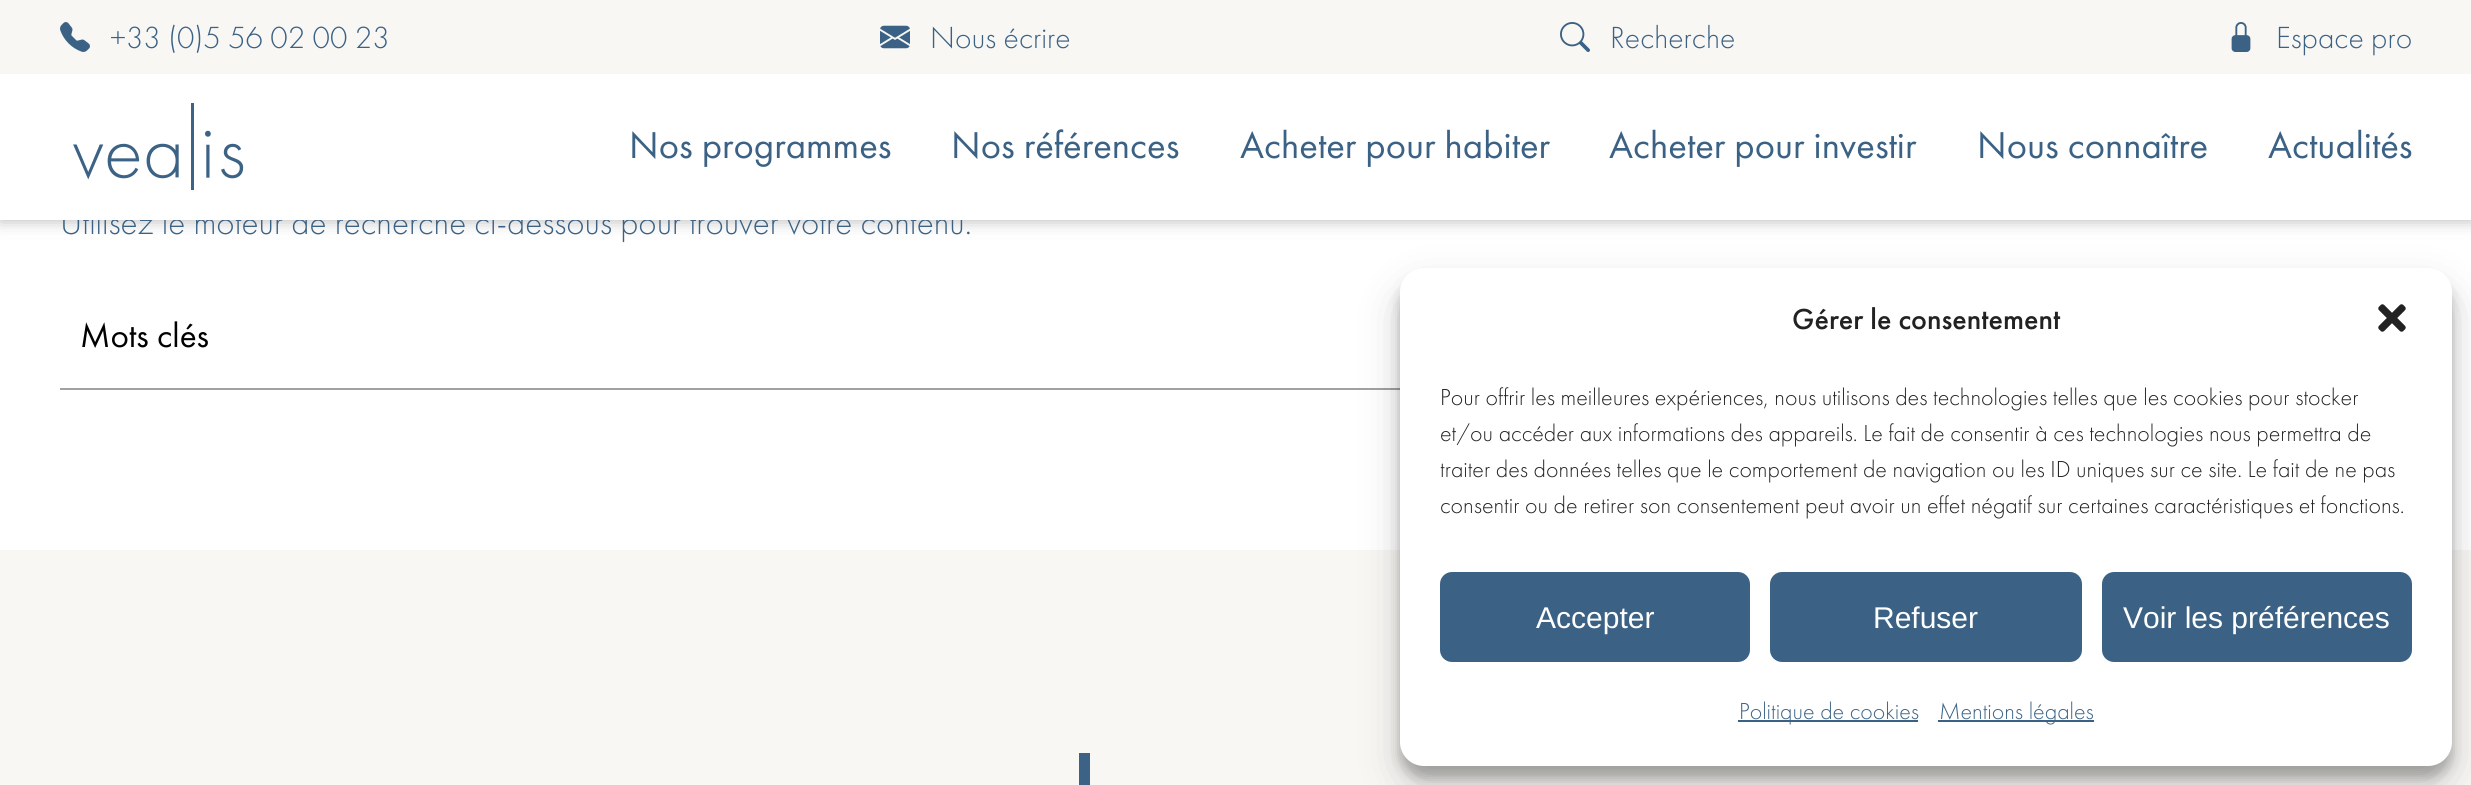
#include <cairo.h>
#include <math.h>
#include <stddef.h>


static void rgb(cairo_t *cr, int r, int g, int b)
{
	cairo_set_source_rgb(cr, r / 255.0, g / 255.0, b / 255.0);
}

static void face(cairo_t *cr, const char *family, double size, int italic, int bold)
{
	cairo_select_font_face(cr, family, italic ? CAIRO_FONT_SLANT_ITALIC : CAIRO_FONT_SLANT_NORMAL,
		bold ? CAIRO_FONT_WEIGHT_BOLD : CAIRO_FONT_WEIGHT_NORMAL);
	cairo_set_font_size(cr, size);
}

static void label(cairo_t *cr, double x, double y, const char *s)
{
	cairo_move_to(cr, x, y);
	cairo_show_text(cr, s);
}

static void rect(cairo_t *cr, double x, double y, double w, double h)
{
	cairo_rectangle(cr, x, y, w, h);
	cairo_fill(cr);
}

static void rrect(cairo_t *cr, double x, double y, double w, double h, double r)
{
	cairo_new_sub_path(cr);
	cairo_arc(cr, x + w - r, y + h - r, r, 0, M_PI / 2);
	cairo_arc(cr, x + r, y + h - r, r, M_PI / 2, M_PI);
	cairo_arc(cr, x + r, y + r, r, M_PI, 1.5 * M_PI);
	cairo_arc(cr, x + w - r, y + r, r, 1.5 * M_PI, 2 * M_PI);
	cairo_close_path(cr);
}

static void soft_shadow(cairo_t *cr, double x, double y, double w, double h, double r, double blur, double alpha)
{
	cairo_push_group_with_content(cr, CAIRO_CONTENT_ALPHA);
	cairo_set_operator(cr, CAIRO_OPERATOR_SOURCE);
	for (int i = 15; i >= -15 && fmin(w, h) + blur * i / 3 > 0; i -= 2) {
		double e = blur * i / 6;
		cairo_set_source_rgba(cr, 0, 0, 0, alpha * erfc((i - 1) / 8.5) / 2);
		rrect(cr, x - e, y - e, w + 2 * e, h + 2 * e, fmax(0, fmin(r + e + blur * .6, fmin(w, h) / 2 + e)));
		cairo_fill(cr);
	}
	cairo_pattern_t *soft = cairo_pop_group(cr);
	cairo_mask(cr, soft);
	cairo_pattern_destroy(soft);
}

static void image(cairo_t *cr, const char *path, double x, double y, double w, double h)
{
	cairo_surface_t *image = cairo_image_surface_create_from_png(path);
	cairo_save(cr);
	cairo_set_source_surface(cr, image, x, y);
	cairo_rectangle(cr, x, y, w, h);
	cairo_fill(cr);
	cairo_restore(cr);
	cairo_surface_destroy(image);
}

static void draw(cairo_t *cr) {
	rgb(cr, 255, 255, 255);
	cairo_paint(cr);
	rgb(cr, 179, 179, 179);
	soft_shadow(cr, 0, 0, 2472, 220, 0, 8, 1);
	rgb(cr, 248, 247, 244);
	rect(cr, 0, 0, 2471, 74);
	image(cr, "image0.png", 60, 22, 30, 30);
	face(cr, "Futura PT Light", 31.75, 0, 0);
	rgb(cr, 59, 98, 133);
	label(cr, 110, 48, "+33 (0)5 56 02 00 23");
	image(cr, "image1.png", 880, 25, 30, 24);
	label(cr, 930, 48, "Nous écrire");
	image(cr, "image2.png", 1560, 22, 30, 30);
	label(cr, 1610, 48, "Recherche");
	image(cr, "image3.png", 2231, 22, 20, 30);
	label(cr, 2276, 48, "Espace pro");
	face(cr, "Futura PT Light", 35.2, 0, 0);
	label(cr, 60, 234, "Utilisez le moteur de recherche ci-dessous pour trouver votre contenu.");
	rgb(cr, 255, 255, 255);
	rect(cr, 0, 74, 2471, 146);
	image(cr, "image4.png", 73, 103, 171, 87);
	face(cr, "Futura PT", 38.75, 0, 0);
	rgb(cr, 59, 98, 133);
	label(cr, 629, 158, "Nos programmes");
	label(cr, 951, 158, "Nos références");
	label(cr, 1240, 158, "Acheter pour habiter");
	label(cr, 1609, 158, "Acheter pour investir");
	label(cr, 1977, 158, "Nous connaître");
	label(cr, 2268, 158, "Actualités");
	rgb(cr, 161, 161, 161);
	rect(cr, 60, 388, 1340, 2);
	face(cr, "Futura PT", 35.2, 0, 0);
	rgb(cr, 0, 0, 0);
	label(cr, 80, 347, "Mots clés");
	rgb(cr, 248, 247, 244);
	rect(cr, 0, 550, 2471, 235);
	rgb(cr, 0, 0, 0);
	soft_shadow(cr, 1400, 280, 1052, 498, 24, 6, 0.23);
	soft_shadow(cr, 1400, 288, 1052, 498, 24, 20, 0.19);
	rgb(cr, 255, 255, 255);
	rrect(cr, 1400, 268, 1052, 498, 24);
	cairo_fill(cr);
	face(cr, "Futura PT Medium", 30, 0, 0);
	rgb(cr, 34, 34, 34);
	label(cr, 1792, 329, "Gérer le consentement");
	image(cr, "image5.png", 2378, 304, 28, 28);
	face(cr, "Futura PT Light", 24, 0, 0);
	label(cr, 1440, 405, "Pour offrir les meilleures expériences, nous utilisons des technologies telles que les cookies pour stocker");
	label(cr, 1440, 441, "et/ou accéder aux informations des appareils. Le fait de consentir à ces technologies nous permettra de");
	label(cr, 1440, 477, "traiter des données telles que le comportement de navigation ou les ID uniques sur ce site. Le fait de ne pas");
	label(cr, 1440, 513, "consentir ou de retirer son consentement peut avoir un effet négatif sur certaines caractéristiques et fonctions.");
	rgb(cr, 59, 98, 133);
	rrect(cr, 1441, 573, 308, 88, 11);
	cairo_fill_preserve(cr);
	cairo_stroke(cr);
	face(cr, "Liberation Sans", 30, 0, 0);
	rgb(cr, 255, 255, 255);
	label(cr, 1536, 628, "Accepter");
	rgb(cr, 59, 98, 133);
	rrect(cr, 1771, 573, 310, 88, 11);
	cairo_fill_preserve(cr);
	cairo_stroke(cr);
	rgb(cr, 255, 255, 255);
	label(cr, 1873, 628, "Refuser");
	rgb(cr, 59, 98, 133);
	rrect(cr, 2103, 573, 308, 88, 11);
	cairo_fill_preserve(cr);
	cairo_stroke(cr);
	rgb(cr, 255, 255, 255);
	label(cr, 2123, 628, "Voir les préférences");
	rgb(cr, 59, 98, 133);
	rect(cr, 1738, 720, 180, 2);
	face(cr, "Futura PT Light", 24, 0, 0);
	label(cr, 1739, 719, "Politique de cookies");
	rect(cr, 1938, 720, 156, 2);
	label(cr, 1939, 719, "Mentions légales");
	rgb(cr, 60, 98, 133);
	rect(cr, 1079, 753, 11, 32);
}

int main(void) {
	cairo_surface_t *surface = cairo_image_surface_create(CAIRO_FORMAT_RGB24, 2471, 785);
	cairo_t *cr = cairo_create(surface);
	cairo_font_options_t *options = cairo_font_options_create();
	cairo_font_options_set_hint_metrics(options, CAIRO_HINT_METRICS_OFF);
	cairo_font_options_set_hint_style(options, CAIRO_HINT_STYLE_NONE);
	cairo_set_font_options(cr, options);
	cairo_set_miter_limit(cr, 4);
	draw(cr);
	cairo_surface_write_to_png(surface, "render.png");
	cairo_font_options_destroy(options);
	cairo_destroy(cr);
	cairo_surface_destroy(surface);
	return 0;
}
